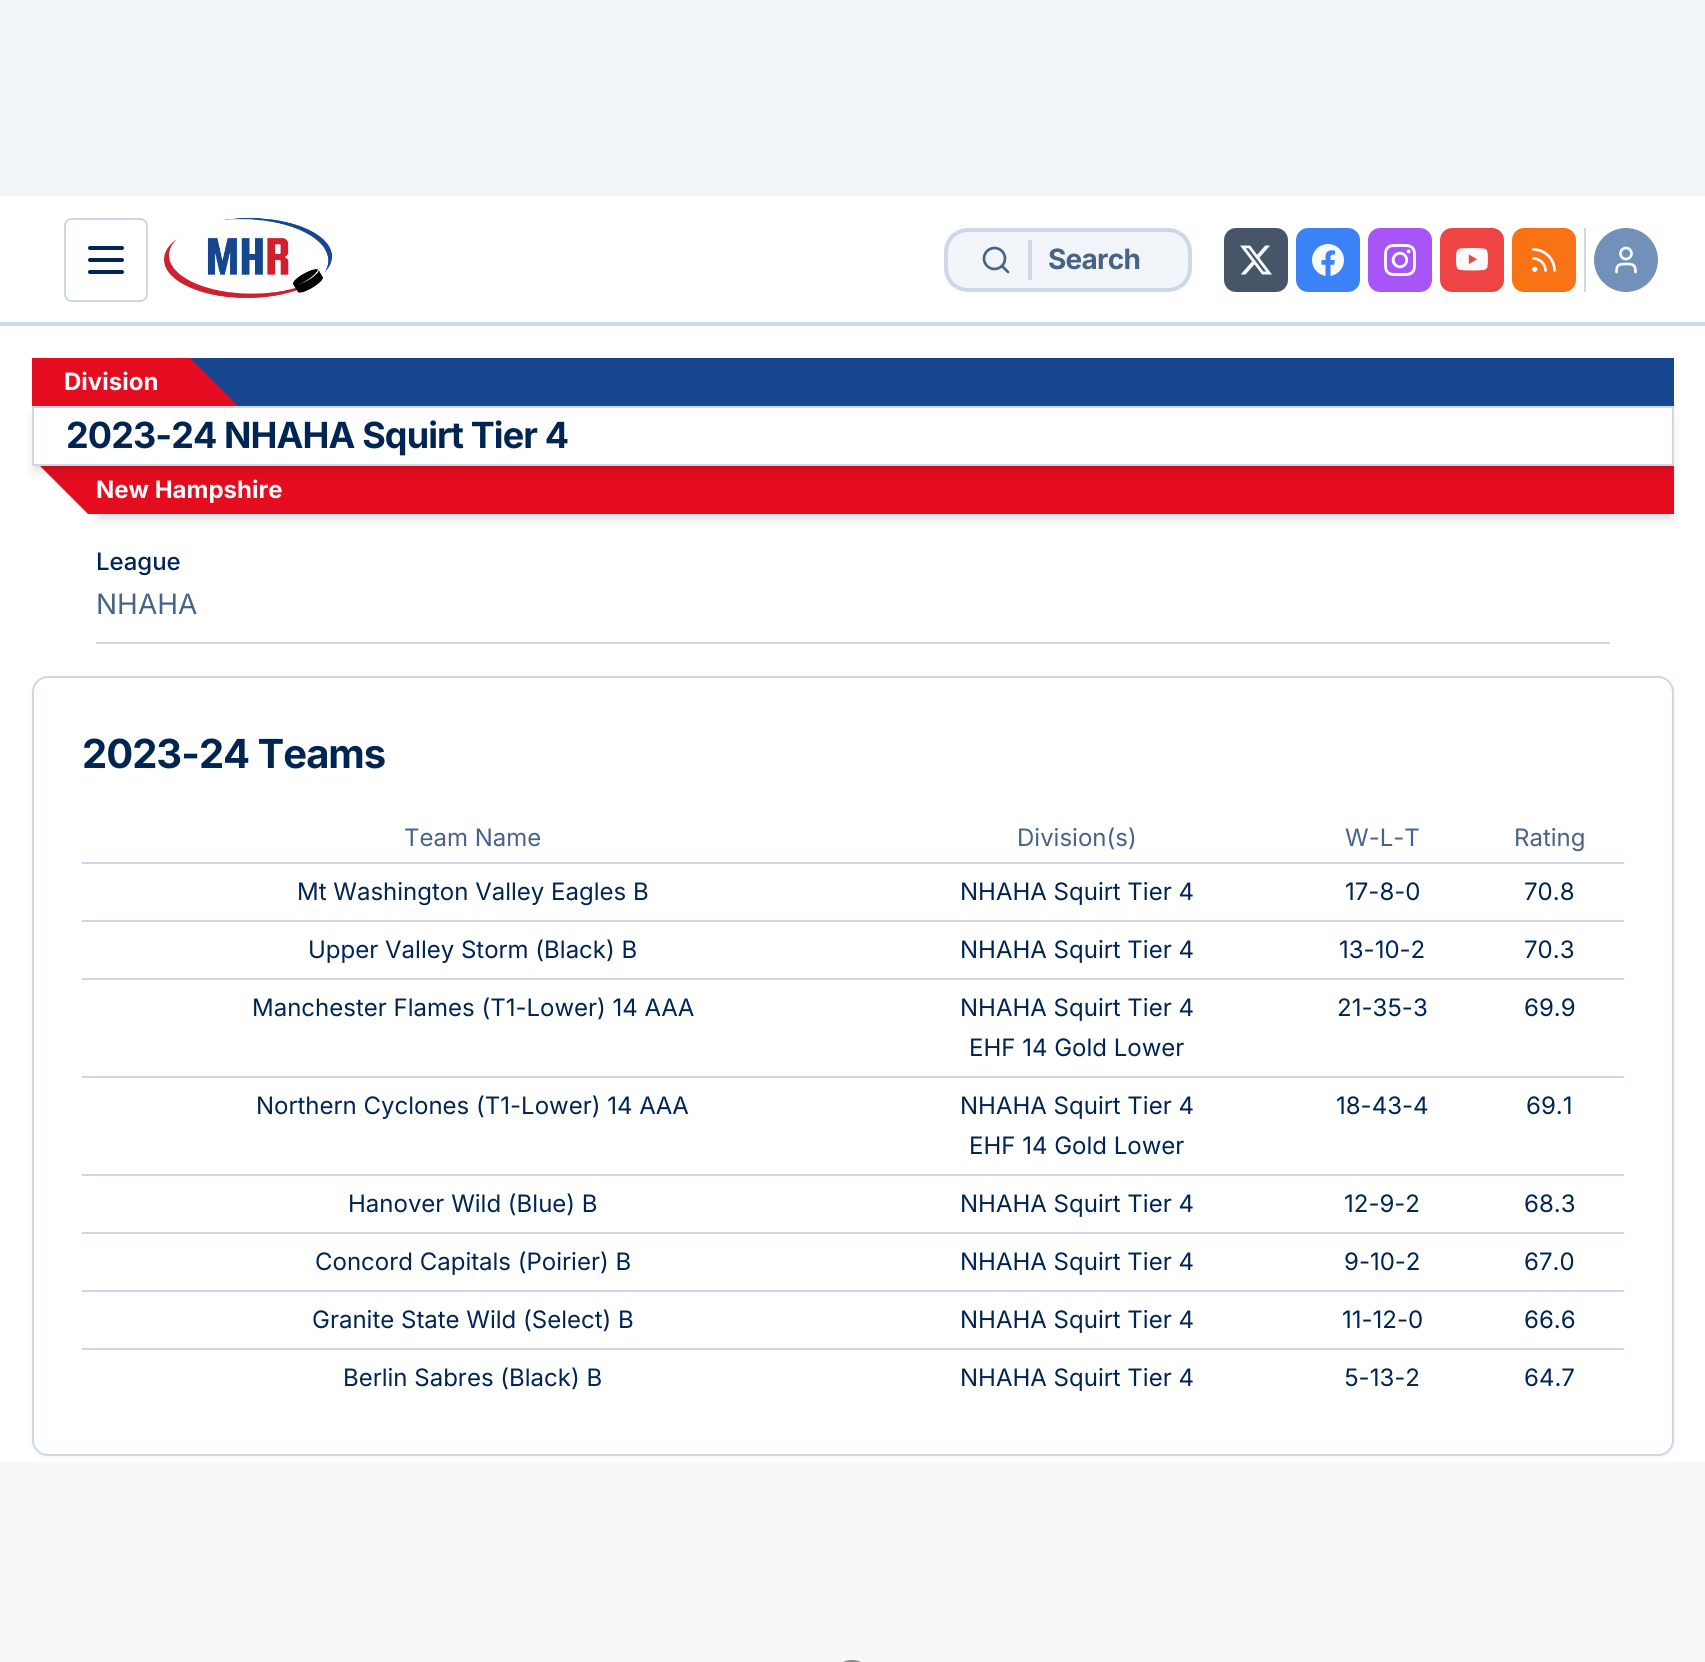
#include <cairo.h>
#include <math.h>
#include <stddef.h>


static void rgb(cairo_t *cr, int r, int g, int b)
{
	cairo_set_source_rgb(cr, r / 255.0, g / 255.0, b / 255.0);
}

static void face(cairo_t *cr, const char *family, double size, int italic, int bold)
{
	cairo_select_font_face(cr, family, italic ? CAIRO_FONT_SLANT_ITALIC : CAIRO_FONT_SLANT_NORMAL,
		bold ? CAIRO_FONT_WEIGHT_BOLD : CAIRO_FONT_WEIGHT_NORMAL);
	cairo_set_font_size(cr, size);
}

static void label(cairo_t *cr, double x, double y, const char *s)
{
	cairo_move_to(cr, x, y);
	cairo_show_text(cr, s);
}

static void tracked(cairo_t *cr, double x, double y, const char *s, double letter, double word)
{
	cairo_move_to(cr, x, y);
	while (*s) {
		char ch[5] = {0};
		int n = 0;
		do ch[n++] = *s++; while ((*s & 0xC0) == 0x80);
		cairo_show_text(cr, ch);
		cairo_rel_move_to(cr, letter + word * (*ch == ' '), 0);
	}
}

static void rect(cairo_t *cr, double x, double y, double w, double h)
{
	cairo_rectangle(cr, x, y, w, h);
	cairo_fill(cr);
}

static void rrect(cairo_t *cr, double x, double y, double w, double h, double r)
{
	cairo_new_sub_path(cr);
	cairo_arc(cr, x + w - r, y + h - r, r, 0, M_PI / 2);
	cairo_arc(cr, x + r, y + h - r, r, M_PI / 2, M_PI);
	cairo_arc(cr, x + r, y + r, r, M_PI, 1.5 * M_PI);
	cairo_arc(cr, x + w - r, y + r, r, 1.5 * M_PI, 2 * M_PI);
	cairo_close_path(cr);
}

static void soft_shadow(cairo_t *cr, double x, double y, double w, double h, double r, double blur, double alpha)
{
	cairo_push_group_with_content(cr, CAIRO_CONTENT_ALPHA);
	cairo_set_operator(cr, CAIRO_OPERATOR_SOURCE);
	for (int i = 15; i >= -15 && fmin(w, h) + blur * i / 3 > 0; i -= 2) {
		double e = blur * i / 6;
		cairo_set_source_rgba(cr, 0, 0, 0, alpha * erfc((i - 1) / 8.5) / 2);
		rrect(cr, x - e, y - e, w + 2 * e, h + 2 * e, fmax(0, fmin(r + e + blur * .6, fmin(w, h) / 2 + e)));
		cairo_fill(cr);
	}
	cairo_pattern_t *soft = cairo_pop_group(cr);
	cairo_mask(cr, soft);
	cairo_pattern_destroy(soft);
}

static void image(cairo_t *cr, const char *path, double x, double y, double w, double h)
{
	cairo_surface_t *image = cairo_image_surface_create_from_png(path);
	cairo_save(cr);
	cairo_set_source_surface(cr, image, x, y);
	cairo_rectangle(cr, x, y, w, h);
	cairo_fill(cr);
	cairo_restore(cr);
	cairo_surface_destroy(image);
}

static void draw(cairo_t *cr) {
	rgb(cr, 255, 255, 255);
	cairo_paint(cr);
	rgb(cr, 241, 244, 249);
	rect(cr, 0, 0, 1705, 196);
	rgb(cr, 205, 215, 229);
	rect(cr, 0, 322, 1705, 4);
	rrect(cr, 65, 219, 82, 82, 7);
	cairo_stroke(cr);
	cairo_new_path(cr);
	cairo_move_to(cr, 90, 260);
	cairo_line_to(cr, 122, 260);
	cairo_move_to(cr, 90, 248);
	cairo_line_to(cr, 122, 248);
	cairo_move_to(cr, 90, 272);
	cairo_line_to(cr, 122, 272);
	rgb(cr, 0, 37, 82);
	cairo_set_line_width(cr, 4);
	cairo_set_line_cap(cr, CAIRO_LINE_CAP_ROUND);
	cairo_set_line_join(cr, CAIRO_LINE_JOIN_ROUND);
	cairo_stroke(cr);
	image(cr, "image0.png", 164, 217, 168, 81);
	rgb(cr, 241, 244, 249);
	rrect(cr, 946, 230, 244, 60, 22);
	cairo_fill_preserve(cr);
	rgb(cr, 205, 215, 229);
	cairo_set_line_cap(cr, CAIRO_LINE_CAP_BUTT);
	cairo_set_line_join(cr, CAIRO_LINE_JOIN_MITER);
	cairo_stroke(cr);
	cairo_new_path(cr);
	cairo_move_to(cr, 1008, 272);
	cairo_line_to(cr, 1002, 266);
	rgb(cr, 71, 99, 133);
	cairo_set_line_width(cr, 2.7);
	cairo_set_line_cap(cr, CAIRO_LINE_CAP_ROUND);
	cairo_set_line_join(cr, CAIRO_LINE_JOIN_ROUND);
	cairo_stroke(cr);
	cairo_arc(cr, 994.5, 258.5, 10.5, 0, 2 * M_PI);
	cairo_set_line_cap(cr, CAIRO_LINE_CAP_BUTT);
	cairo_set_line_join(cr, CAIRO_LINE_JOIN_MITER);
	cairo_stroke(cr);
	rgb(cr, 205, 215, 229);
	rect(cr, 1028, 240, 4, 40);
	face(cr, "Inter", 28, 0, 1);
	rgb(cr, 71, 99, 133);
	tracked(cr, 1048, 269, "Search", -0.75, 0);
	rgb(cr, 71, 85, 105);
	rrect(cr, 1224, 228, 64, 64, 12);
	cairo_fill(cr);
	image(cr, "image1.png", 1240, 245, 32, 30);
	rgb(cr, 59, 130, 246);
	rrect(cr, 1296, 228, 64, 64, 12);
	cairo_fill(cr);
	image(cr, "image2.png", 1312, 244, 32, 32);
	rgb(cr, 168, 85, 247);
	rrect(cr, 1368, 228, 64, 64, 12);
	cairo_fill(cr);
	image(cr, "image3.png", 1384, 244, 32, 32);
	rgb(cr, 239, 68, 68);
	rrect(cr, 1440, 228, 64, 64, 12);
	cairo_fill(cr);
	image(cr, "image4.png", 1456, 248, 32, 23);
	rgb(cr, 249, 115, 22);
	rrect(cr, 1512, 228, 64, 64, 12);
	cairo_fill(cr);
	cairo_new_path(cr);
	cairo_move_to(cr, 1533.5, 258.5);
	cairo_curve_to(cr, 1540, 258.5, 1545.5, 264, 1545.5, 270.5);
	cairo_move_to(cr, 1533.5, 249.5);
	cairo_curve_to(cr, 1545, 249.5, 1554.5, 259, 1554.5, 270.5);
	rgb(cr, 248, 250, 252);
	cairo_set_line_cap(cr, CAIRO_LINE_CAP_ROUND);
	cairo_set_line_join(cr, CAIRO_LINE_JOIN_ROUND);
	cairo_stroke(cr);
	cairo_arc(cr, 1534.7, 269.3, 1.3, 0, 2 * M_PI);
	cairo_set_line_cap(cr, CAIRO_LINE_CAP_BUTT);
	cairo_set_line_join(cr, CAIRO_LINE_JOIN_MITER);
	cairo_stroke(cr);
	rgb(cr, 205, 215, 229);
	rect(cr, 1584, 228, 2, 64);
	rgb(cr, 115, 144, 187);
	cairo_arc(cr, 1626, 260, 32, 0, 2 * M_PI);
	cairo_fill(cr);
	cairo_new_path(cr);
	cairo_move_to(cr, 1635.5, 272);
	cairo_curve_to(cr, 1635.5, 264.5, 1633, 264, 1626, 264);
	cairo_curve_to(cr, 1619, 264, 1616.5, 264.5, 1616.5, 272);
	rgb(cr, 248, 250, 252);
	cairo_set_line_cap(cr, CAIRO_LINE_CAP_ROUND);
	cairo_set_line_join(cr, CAIRO_LINE_JOIN_ROUND);
	cairo_stroke(cr);
	cairo_arc(cr, 1626, 253.5, 5.5, 0, 2 * M_PI);
	cairo_set_line_cap(cr, CAIRO_LINE_CAP_BUTT);
	cairo_set_line_join(cr, CAIRO_LINE_JOIN_MITER);
	cairo_stroke(cr);
	rgb(cr, 22, 70, 141);
	rect(cr, 190, 358, 1484, 48);
	rgb(cr, 228, 12, 30);
	rect(cr, 32, 358, 158, 48);
	face(cr, "Inter", 24, 0, 1);
	rgb(cr, 248, 250, 252);
	label(cr, 64, 390, "Division");
	rgb(cr, 228, 12, 30);
	cairo_new_path(cr);
	cairo_move_to(cr, 142, 358);
	cairo_line_to(cr, 190, 358);
	cairo_line_to(cr, 238, 406);
	cairo_line_to(cr, 190, 406);
	cairo_close_path(cr);
	cairo_fill(cr);
	rgb(cr, 0, 0, 0);
	soft_shadow(cr, 100, 474, 1570, 40, 0, 4, 0.1);
	soft_shadow(cr, 98, 476, 1574, 44, 0, 6, 0.1);
	rgb(cr, 228, 12, 30);
	rect(cr, 104, 466, 1570, 48);
	cairo_new_path(cr);
	cairo_move_to(cr, 40, 466);
	cairo_line_to(cr, 104, 466);
	cairo_line_to(cr, 152, 514);
	cairo_line_to(cr, 88, 514);
	cairo_close_path(cr);
	cairo_fill(cr);
	cairo_save(cr);
	cairo_rectangle(cr, 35, 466, 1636, 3);
	cairo_clip(cr);
	rgb(cr, 0, 0, 0);
	soft_shadow(cr, 36, 414, 1634, 52, 0, 4, 0.1);
	cairo_restore(cr);
	cairo_save(cr);
	cairo_set_fill_rule(cr, CAIRO_FILL_RULE_EVEN_ODD);
	cairo_new_path(cr);
	cairo_move_to(cr, 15, 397);
	cairo_line_to(cr, 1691, 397);
	cairo_line_to(cr, 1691, 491);
	cairo_line_to(cr, 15, 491);
	cairo_close_path(cr);
	cairo_move_to(cr, 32, 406);
	cairo_line_to(cr, 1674, 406);
	cairo_line_to(cr, 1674, 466);
	cairo_line_to(cr, 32, 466);
	cairo_close_path(cr);
	cairo_clip(cr);
	rgb(cr, 0, 0, 0);
	soft_shadow(cr, 34, 416, 1638, 56, 0, 6, 0.1);
	cairo_restore(cr);
	cairo_rectangle(cr, 33, 407, 1640, 58);
	rgb(cr, 205, 215, 229);
	cairo_set_line_width(cr, 2);
	cairo_stroke(cr);
	face(cr, "Inter", 36, 0, 1);
	rgb(cr, 0, 37, 82);
	tracked(cr, 66, 448, "2023-24 NHAHA Squirt Tier 4", -0.9, 0);
	face(cr, "Inter", 24, 0, 1);
	rgb(cr, 248, 250, 252);
	label(cr, 96, 498, "New Hampshire");
	face(cr, "Inter Medium", 24, 0, 0);
	rgb(cr, 0, 37, 82);
	label(cr, 96, 570, "League");
	face(cr, "Inter", 28, 0, 0);
	rgb(cr, 71, 99, 133);
	label(cr, 96, 614, "NHAHA");
	rgb(cr, 205, 215, 229);
	rect(cr, 96, 642, 1514, 2);
	rgb(cr, 0, 0, 0);
	soft_shadow(cr, 32, 678, 1642, 780, 16, 2, 0.05);
	rgb(cr, 255, 255, 255);
	rrect(cr, 33, 677, 1640, 778, 15);
	cairo_fill_preserve(cr);
	rgb(cr, 205, 215, 229);
	cairo_stroke(cr);
	face(cr, "Inter", 40, 0, 1);
	rgb(cr, 0, 37, 82);
	tracked(cr, 82, 768, "2023-24 Teams", -1, 0);
	face(cr, "Inter", 24, 0, 0);
	rgb(cr, 71, 99, 133);
	label(cr, 404, 846, "Team Name");
	label(cr, 1017, 846, "Division(s)");
	label(cr, 1345, 846, "W-L-T");
	label(cr, 1514, 846, "Rating");
	rgb(cr, 205, 215, 229);
	rect(cr, 82, 862, 1542, 2);
	rgb(cr, 0, 37, 82);
	label(cr, 297, 900, "Mt Washington Valley Eagles B");
	label(cr, 960, 900, "NHAHA Squirt Tier 4");
	label(cr, 1345, 900, "17-8-0");
	label(cr, 1524, 900, "70.8");
	rgb(cr, 205, 215, 229);
	rect(cr, 82, 920, 1542, 2);
	rgb(cr, 0, 37, 82);
	label(cr, 308, 958, "Upper Valley Storm (Black) B");
	label(cr, 960, 958, "NHAHA Squirt Tier 4");
	label(cr, 1339, 958, "13-10-2");
	label(cr, 1524, 958, "70.3");
	rgb(cr, 205, 215, 229);
	rect(cr, 82, 978, 1542, 2);
	rgb(cr, 0, 37, 82);
	label(cr, 252, 1016, "Manchester Flames (T1-Lower) 14 AAA");
	label(cr, 960, 1016, "NHAHA Squirt Tier 4");
	label(cr, 969, 1056, "EHF 14 Gold Lower");
	label(cr, 1337, 1016, "21-35-3");
	label(cr, 1524, 1016, "69.9");
	rgb(cr, 205, 215, 229);
	rect(cr, 82, 1076, 1542, 2);
	rgb(cr, 0, 37, 82);
	label(cr, 256, 1114, "Northern Cyclones (T1-Lower) 14 AAA");
	label(cr, 960, 1114, "NHAHA Squirt Tier 4");
	label(cr, 969, 1154, "EHF 14 Gold Lower");
	label(cr, 1336, 1114, "18-43-4");
	label(cr, 1526, 1114, "69.1");
	rgb(cr, 205, 215, 229);
	rect(cr, 82, 1174, 1542, 2);
	rgb(cr, 0, 37, 82);
	label(cr, 348, 1212, "Hanover Wild (Blue) B");
	label(cr, 960, 1212, "NHAHA Squirt Tier 4");
	label(cr, 1344, 1212, "12-9-2");
	label(cr, 1524, 1212, "68.3");
	rgb(cr, 205, 215, 229);
	rect(cr, 82, 1232, 1542, 2);
	rgb(cr, 0, 37, 82);
	label(cr, 315, 1270, "Concord Capitals (Poirier) B");
	label(cr, 960, 1270, "NHAHA Squirt Tier 4");
	label(cr, 1344, 1270, "9-10-2");
	label(cr, 1524, 1270, "67.0");
	rgb(cr, 205, 215, 229);
	rect(cr, 82, 1290, 1542, 2);
	rgb(cr, 0, 37, 82);
	label(cr, 312, 1328, "Granite State Wild (Select) B");
	label(cr, 960, 1328, "NHAHA Squirt Tier 4");
	label(cr, 1342, 1328, "11-12-0");
	label(cr, 1524, 1328, "66.6");
	rgb(cr, 205, 215, 229);
	rect(cr, 82, 1348, 1542, 2);
	rgb(cr, 0, 37, 82);
	label(cr, 343, 1386, "Berlin Sabres (Black) B");
	label(cr, 960, 1386, "NHAHA Squirt Tier 4");
	label(cr, 1344, 1386, "5-13-2");
	label(cr, 1524, 1386, "64.7");
	rgb(cr, 248, 248, 248);
	rect(cr, 0, 1462, 1705, 200);
	rrect(cr, 831, 1661, 42, 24, 21);
	rgb(cr, 136, 136, 136);
	cairo_stroke(cr);
}

int main(void) {
	cairo_surface_t *surface = cairo_image_surface_create(CAIRO_FORMAT_RGB24, 1705, 1662);
	cairo_t *cr = cairo_create(surface);
	cairo_font_options_t *options = cairo_font_options_create();
	cairo_font_options_set_hint_metrics(options, CAIRO_HINT_METRICS_OFF);
	cairo_font_options_set_hint_style(options, CAIRO_HINT_STYLE_NONE);
	cairo_set_font_options(cr, options);
	cairo_set_miter_limit(cr, 4);
	draw(cr);
	cairo_surface_write_to_png(surface, "render.png");
	cairo_font_options_destroy(options);
	cairo_destroy(cr);
	cairo_surface_destroy(surface);
	return 0;
}
